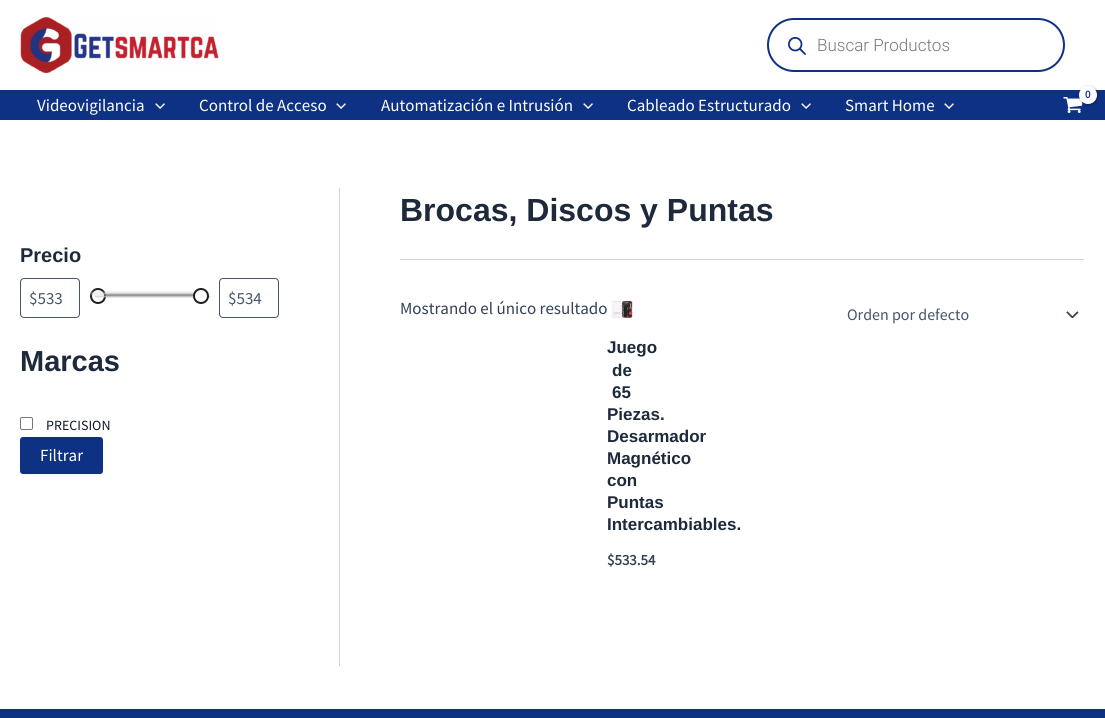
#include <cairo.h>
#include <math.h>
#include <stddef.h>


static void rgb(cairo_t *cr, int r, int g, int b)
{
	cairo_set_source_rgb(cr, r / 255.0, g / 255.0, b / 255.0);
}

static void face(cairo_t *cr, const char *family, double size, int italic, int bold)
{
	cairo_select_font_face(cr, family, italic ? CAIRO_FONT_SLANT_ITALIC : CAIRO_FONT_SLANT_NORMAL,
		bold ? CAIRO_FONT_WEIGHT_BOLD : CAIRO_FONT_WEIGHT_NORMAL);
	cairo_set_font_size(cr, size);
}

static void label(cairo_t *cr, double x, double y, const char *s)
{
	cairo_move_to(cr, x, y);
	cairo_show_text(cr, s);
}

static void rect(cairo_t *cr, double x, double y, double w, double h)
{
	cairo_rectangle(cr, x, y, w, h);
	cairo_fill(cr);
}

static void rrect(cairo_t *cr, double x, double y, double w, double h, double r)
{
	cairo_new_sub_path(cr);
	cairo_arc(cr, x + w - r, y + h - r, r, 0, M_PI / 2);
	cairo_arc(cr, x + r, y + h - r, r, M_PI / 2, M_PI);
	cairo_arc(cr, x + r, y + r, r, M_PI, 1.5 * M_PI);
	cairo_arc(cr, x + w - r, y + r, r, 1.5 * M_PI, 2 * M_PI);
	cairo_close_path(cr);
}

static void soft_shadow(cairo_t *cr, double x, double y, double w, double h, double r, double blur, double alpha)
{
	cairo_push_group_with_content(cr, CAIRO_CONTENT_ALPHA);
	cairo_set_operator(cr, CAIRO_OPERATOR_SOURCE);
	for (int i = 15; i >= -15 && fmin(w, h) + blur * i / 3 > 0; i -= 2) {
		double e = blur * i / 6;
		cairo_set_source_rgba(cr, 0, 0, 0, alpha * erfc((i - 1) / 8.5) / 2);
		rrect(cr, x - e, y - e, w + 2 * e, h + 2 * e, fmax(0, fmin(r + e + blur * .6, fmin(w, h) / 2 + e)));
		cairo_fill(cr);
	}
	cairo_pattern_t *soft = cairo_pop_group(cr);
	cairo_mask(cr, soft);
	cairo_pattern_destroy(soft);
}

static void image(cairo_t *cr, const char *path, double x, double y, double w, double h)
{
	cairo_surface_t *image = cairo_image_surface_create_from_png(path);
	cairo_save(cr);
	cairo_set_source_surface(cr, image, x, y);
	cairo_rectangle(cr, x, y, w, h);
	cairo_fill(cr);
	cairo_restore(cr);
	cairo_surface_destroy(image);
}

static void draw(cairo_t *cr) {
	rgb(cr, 255, 255, 255);
	cairo_paint(cr);
	image(cr, "image0.png", 20, 17, 199, 56);
	rrect(cr, 768, 19, 296, 52, 26);
	rgb(cr, 14, 49, 131);
	cairo_stroke(cr);
	image(cr, "image1.png", 788, 37, 18, 18);
	face(cr, "Roboto Light", 17, 0, 0);
	rgb(cr, 119, 119, 119);
	label(cr, 817, 51, "Buscar Productos");
	rgb(cr, 14, 49, 131);
	rect(cr, 0, 90, 1105, 30);
	image(cr, "image2.png", 1063, 97, 20, 16);
	rgb(cr, 0, 0, 0);
	soft_shadow(cr, 1080, 87, 18, 18, 9, 1.5, 0.3);
	rgb(cr, 255, 255, 255);
	cairo_arc(cr, 1088, 95, 9, 0, 2 * M_PI);
	cairo_fill(cr);
	face(cr, "Source Sans Pro", 11, 0, 1);
	rgb(cr, 14, 49, 131);
	label(cr, 1085, 98, "0");
	face(cr, "Source Sans Pro", 17, 0, 0);
	rgb(cr, 255, 255, 255);
	label(cr, 37, 111, "Videovigilancia");
	image(cr, "image3.png", 155, 103, 10, 6);
	label(cr, 199, 111, "Control de Acceso");
	image(cr, "image3.png", 336, 103, 10, 6);
	label(cr, 381, 111, "Automatización e Intrusión");
	image(cr, "image3.png", 583, 103, 10, 6);
	label(cr, 627, 111, "Cableado Estructurado");
	image(cr, "image3.png", 801, 103, 10, 6);
	label(cr, 845, 111, "Smart Home");
	image(cr, "image3.png", 944, 103, 10, 6);
	rgb(cr, 209, 213, 219);
	rect(cr, 339, 188, 1, 478);
	face(cr, "Liberation Sans", 20, 0, 1);
	rgb(cr, 30, 41, 59);
	label(cr, 20, 262, "Precio");
	rrect(cr, 20.5, 278.5, 59, 39, 3.5);
	rgb(cr, 71, 85, 105);
	cairo_set_line_width(cr, 1);
	cairo_stroke(cr);
	face(cr, "Source Sans Pro", 17, 0, 0);
	label(cr, 29, 304, "$533");
	rgb(cr, 51, 65, 85);
	rect(cr, 105, 293, 89, 4);
	rgb(cr, 217, 217, 217);
	soft_shadow(cr, 92, 293, 115, 1, 0.5, 1.5, 1);
	rgb(cr, 204, 204, 204);
	soft_shadow(cr, 95, 296, 115, 1, 0.5, 0.5, 1);
	cairo_set_source_rgba(cr, 1, 1, 1, 0.2);
	rect(cr, 105, 293, 89, 1);
	rgb(cr, 255, 255, 255);
	cairo_arc(cr, 98, 296, 7, 0, 2 * M_PI);
	cairo_fill_preserve(cr);
	rgb(cr, 30, 30, 30);
	cairo_set_line_width(cr, 2);
	cairo_stroke(cr);
	rgb(cr, 217, 217, 217);
	soft_shadow(cr, 92, 293, 115, 1, 0.5, 1.5, 1);
	rgb(cr, 204, 204, 204);
	soft_shadow(cr, 95, 296, 115, 1, 0.5, 0.5, 1);
	cairo_set_source_rgba(cr, 1, 1, 1, 0.2);
	rect(cr, 92, 293, 102, 1);
	rgb(cr, 255, 255, 255);
	cairo_arc(cr, 201, 296, 7, 0, 2 * M_PI);
	cairo_fill_preserve(cr);
	rgb(cr, 30, 30, 30);
	cairo_stroke(cr);
	rrect(cr, 219.5, 278.5, 59, 39, 3.5);
	rgb(cr, 71, 85, 105);
	cairo_set_line_width(cr, 1);
	cairo_stroke(cr);
	label(cr, 228, 304, "$534");
	face(cr, "Liberation Sans", 29, 0, 1);
	rgb(cr, 30, 41, 59);
	label(cr, 20, 371, "Marcas");
	rrect(cr, 20.5, 417.5, 12, 12, 1.5);
	rgb(cr, 118, 118, 118);
	cairo_stroke(cr);
	face(cr, "Source Sans Pro", 14, 0, 0);
	rgb(cr, 17, 24, 39);
	label(cr, 46, 430, "PRECISION");
	rgb(cr, 0, 0, 0);
	soft_shadow(cr, 20, 438, 83, 37, 3, 1, 0.05);
	rgb(cr, 14, 49, 131);
	rrect(cr, 20, 437, 83, 37, 3);
	cairo_fill(cr);
	face(cr, "Source Sans Pro", 17, 0, 0);
	rgb(cr, 255, 255, 255);
	label(cr, 40, 461, "Filtrar");
	rgb(cr, 209, 213, 219);
	rect(cr, 400, 259, 684, 1);
	face(cr, "Liberation Sans", 32, 0, 1);
	rgb(cr, 30, 41, 59);
	label(cr, 400, 221, "Brocas, Discos y Puntas");
	face(cr, "Source Sans Pro", 17, 0, 0);
	rgb(cr, 51, 65, 85);
	label(cr, 400, 314, "Mostrando el único resultado");
	image(cr, "image4.png", 1066, 311, 13, 7);
	face(cr, "Source Sans Pro", 16, 0, 0);
	rgb(cr, 71, 85, 105);
	label(cr, 847, 320, "Orden por defecto");
	image(cr, "image5.png", 611, 300, 22, 19);
	face(cr, "Liberation Sans", 17, 0, 1);
	rgb(cr, 30, 41, 59);
	label(cr, 607, 353, "Juego");
	label(cr, 612, 376, "de");
	label(cr, 612, 398, "65");
	label(cr, 607, 420, "Piezas.");
	label(cr, 607, 442, "Desarmador");
	label(cr, 607, 464, "Magnético");
	label(cr, 607, 486, "con");
	label(cr, 607, 508, "Puntas");
	label(cr, 607, 530, "Intercambiables.");
	face(cr, "Source Sans Pro", 15, 0, 1);
	rgb(cr, 51, 65, 85);
	label(cr, 607, 565, "$533.54");
	rgb(cr, 14, 49, 131);
	rect(cr, 0, 709, 1105, 9);
}

int main(void) {
	cairo_surface_t *surface = cairo_image_surface_create(CAIRO_FORMAT_RGB24, 1105, 718);
	cairo_t *cr = cairo_create(surface);
	cairo_font_options_t *options = cairo_font_options_create();
	cairo_font_options_set_hint_metrics(options, CAIRO_HINT_METRICS_OFF);
	cairo_font_options_set_hint_style(options, CAIRO_HINT_STYLE_NONE);
	cairo_set_font_options(cr, options);
	cairo_set_miter_limit(cr, 4);
	draw(cr);
	cairo_surface_write_to_png(surface, "render.png");
	cairo_font_options_destroy(options);
	cairo_destroy(cr);
	cairo_surface_destroy(surface);
	return 0;
}
